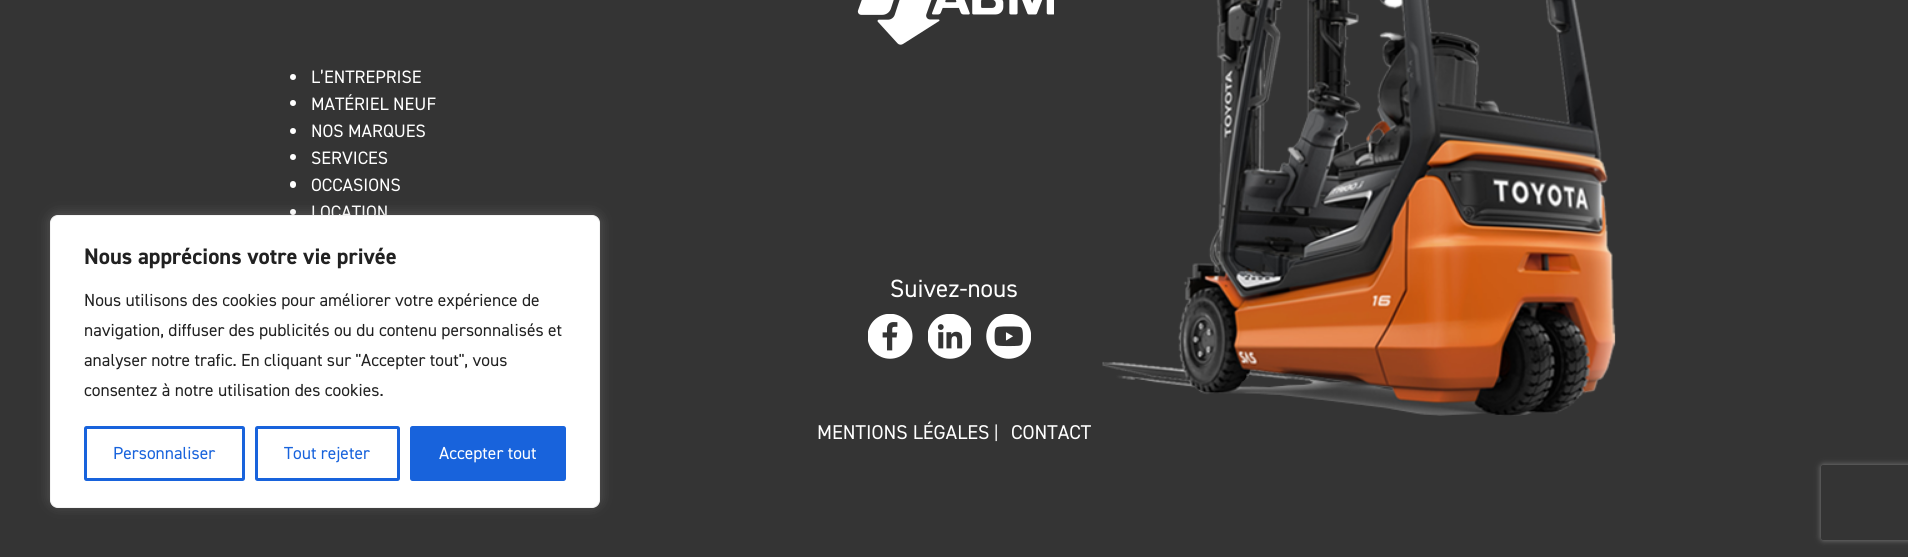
#include <cairo.h>
#include <math.h>
#include <stddef.h>


static void rgb(cairo_t *cr, int r, int g, int b)
{
	cairo_set_source_rgb(cr, r / 255.0, g / 255.0, b / 255.0);
}

static void face(cairo_t *cr, const char *family, double size, int italic, int bold)
{
	cairo_select_font_face(cr, family, italic ? CAIRO_FONT_SLANT_ITALIC : CAIRO_FONT_SLANT_NORMAL,
		bold ? CAIRO_FONT_WEIGHT_BOLD : CAIRO_FONT_WEIGHT_NORMAL);
	cairo_set_font_size(cr, size);
}

static void label(cairo_t *cr, double x, double y, const char *s)
{
	cairo_move_to(cr, x, y);
	cairo_show_text(cr, s);
}

static void rrect(cairo_t *cr, double x, double y, double w, double h, double r)
{
	cairo_new_sub_path(cr);
	cairo_arc(cr, x + w - r, y + h - r, r, 0, M_PI / 2);
	cairo_arc(cr, x + r, y + h - r, r, M_PI / 2, M_PI);
	cairo_arc(cr, x + r, y + r, r, M_PI, 1.5 * M_PI);
	cairo_arc(cr, x + w - r, y + r, r, 1.5 * M_PI, 2 * M_PI);
	cairo_close_path(cr);
}

static void soft_shadow(cairo_t *cr, double x, double y, double w, double h, double r, double blur, double alpha)
{
	cairo_push_group_with_content(cr, CAIRO_CONTENT_ALPHA);
	cairo_set_operator(cr, CAIRO_OPERATOR_SOURCE);
	for (int i = 15; i >= -15 && fmin(w, h) + blur * i / 3 > 0; i -= 2) {
		double e = blur * i / 6;
		cairo_set_source_rgba(cr, 0, 0, 0, alpha * erfc((i - 1) / 8.5) / 2);
		rrect(cr, x - e, y - e, w + 2 * e, h + 2 * e, fmax(0, fmin(r + e + blur * .6, fmin(w, h) / 2 + e)));
		cairo_fill(cr);
	}
	cairo_pattern_t *soft = cairo_pop_group(cr);
	cairo_mask(cr, soft);
	cairo_pattern_destroy(soft);
}

static void image(cairo_t *cr, const char *path, double x, double y, double w, double h)
{
	cairo_surface_t *image = cairo_image_surface_create_from_png(path);
	cairo_save(cr);
	cairo_set_source_surface(cr, image, x, y);
	cairo_rectangle(cr, x, y, w, h);
	cairo_fill(cr);
	cairo_restore(cr);
	cairo_surface_destroy(image);
}

static void draw(cairo_t *cr) {
	rgb(cr, 52, 52, 52);
	cairo_paint(cr);
	image(cr, "image0.png", 857, 0, 197, 45);
	rgb(cr, 255, 255, 255);
	cairo_arc(cr, 293, 77, 3, 0, 2 * M_PI);
	cairo_fill(cr);
	face(cr, "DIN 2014", 18, 0, 0);
	label(cr, 311, 83, "L’ENTREPRISE");
	cairo_new_path(cr);
	cairo_arc(cr, 293, 103, 3, 0, 2 * M_PI);
	cairo_fill(cr);
	label(cr, 311, 110, "MATÉRIEL NEUF");
	cairo_new_path(cr);
	cairo_arc(cr, 293, 131, 3, 0, 2 * M_PI);
	cairo_fill(cr);
	label(cr, 311, 137, "NOS MARQUES");
	cairo_new_path(cr);
	cairo_arc(cr, 293, 157, 3, 0, 2 * M_PI);
	cairo_fill(cr);
	label(cr, 311, 164, "SERVICES");
	rrect(cr, 290, 181, 6, 7, 3);
	cairo_fill(cr);
	label(cr, 311, 191, "OCCASIONS");
	cairo_new_path(cr);
	cairo_arc(cr, 293, 212, 3, 0, 2 * M_PI);
	cairo_fill(cr);
	label(cr, 311, 218, "LOCATION");
	image(cr, "image1.png", 1102, 0, 514, 416);
	face(cr, "DIN 2014", 25, 0, 0);
	label(cr, 890, 297, "Suivez-nous");
	image(cr, "image2.png", 868, 314, 45, 45);
	image(cr, "image3.png", 928, 314, 43, 45);
	image(cr, "image4.png", 986, 314, 45, 45);
	face(cr, "DIN 2014", 20, 0, 0);
	label(cr, 817, 439, "MENTIONS LÉGALES");
	face(cr, "DIN 2014", 18, 0, 0);
	label(cr, 994, 439, "|");
	face(cr, "DIN 2014", 20, 0, 0);
	label(cr, 1011, 439, "CONTACT");
	rgb(cr, 172, 171, 171);
	soft_shadow(cr, 50, 214, 550, 292, 8, 6, 0.3);
	rgb(cr, 255, 255, 255);
	rrect(cr, 50.5, 215.5, 549, 292, 7.5);
	cairo_fill_preserve(cr);
	rgb(cr, 244, 244, 244);
	cairo_set_line_width(cr, 1);
	cairo_stroke(cr);
	face(cr, "DIN 2014", 22.5, 0, 1);
	rgb(cr, 33, 33, 33);
	label(cr, 84, 264, "Nous apprécions votre vie privée");
	face(cr, "DIN 2014", 17.5, 0, 0);
	label(cr, 84, 306, "Nous utilisons des cookies pour améliorer votre expérience de");
	label(cr, 84, 336, "navigation, diffuser des publicités ou du contenu personnalisés et");
	label(cr, 84, 366, "analyser notre trafic. En cliquant sur \"Accepter tout\", vous");
	label(cr, 84, 396, "consentez à notre utilisation des cookies.");
	rrect(cr, 85.5, 427.5, 158, 52, 1);
	rgb(cr, 24, 99, 220);
	cairo_set_line_width(cr, 3);
	cairo_stroke(cr);
	label(cr, 113, 459, "Personnaliser");
	rrect(cr, 256.5, 427.5, 142, 52, 1);
	cairo_stroke(cr);
	label(cr, 284, 459, "Tout rejeter");
	rrect(cr, 411.5, 427.5, 153, 52, 1);
	cairo_fill_preserve(cr);
	cairo_stroke(cr);
	rgb(cr, 255, 255, 255);
	label(cr, 439, 459, "Accepter tout");
	cairo_save(cr);
	cairo_set_fill_rule(cr, CAIRO_FILL_RULE_EVEN_ODD);
	cairo_new_path(cr);
	cairo_move_to(cr, 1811, 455);
	cairo_line_to(cr, 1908, 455);
	cairo_line_to(cr, 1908, 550);
	cairo_line_to(cr, 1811, 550);
	cairo_close_path(cr);
	cairo_move_to(cr, 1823.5, 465);
	cairo_line_to(cr, 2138.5, 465);
	cairo_curve_to(cr, 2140, 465, 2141, 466, 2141, 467.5);
	cairo_line_to(cr, 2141, 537.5);
	cairo_curve_to(cr, 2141, 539, 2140, 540, 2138.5, 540);
	cairo_line_to(cr, 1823.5, 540);
	cairo_curve_to(cr, 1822, 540, 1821, 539, 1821, 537.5);
	cairo_line_to(cr, 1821, 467.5);
	cairo_curve_to(cr, 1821, 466, 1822, 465, 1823.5, 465);
	cairo_close_path(cr);
	cairo_clip(cr);
	rgb(cr, 128, 128, 128);
	soft_shadow(cr, 1821, 465, 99, 75, 2.5, 3, 1);
	cairo_restore(cr);
}

int main(void) {
	cairo_surface_t *surface = cairo_image_surface_create(CAIRO_FORMAT_RGB24, 1908, 557);
	cairo_t *cr = cairo_create(surface);
	cairo_font_options_t *options = cairo_font_options_create();
	cairo_font_options_set_hint_metrics(options, CAIRO_HINT_METRICS_OFF);
	cairo_font_options_set_hint_style(options, CAIRO_HINT_STYLE_NONE);
	cairo_set_font_options(cr, options);
	cairo_set_miter_limit(cr, 4);
	draw(cr);
	cairo_surface_write_to_png(surface, "render.png");
	cairo_font_options_destroy(options);
	cairo_destroy(cr);
	cairo_surface_destroy(surface);
	return 0;
}
